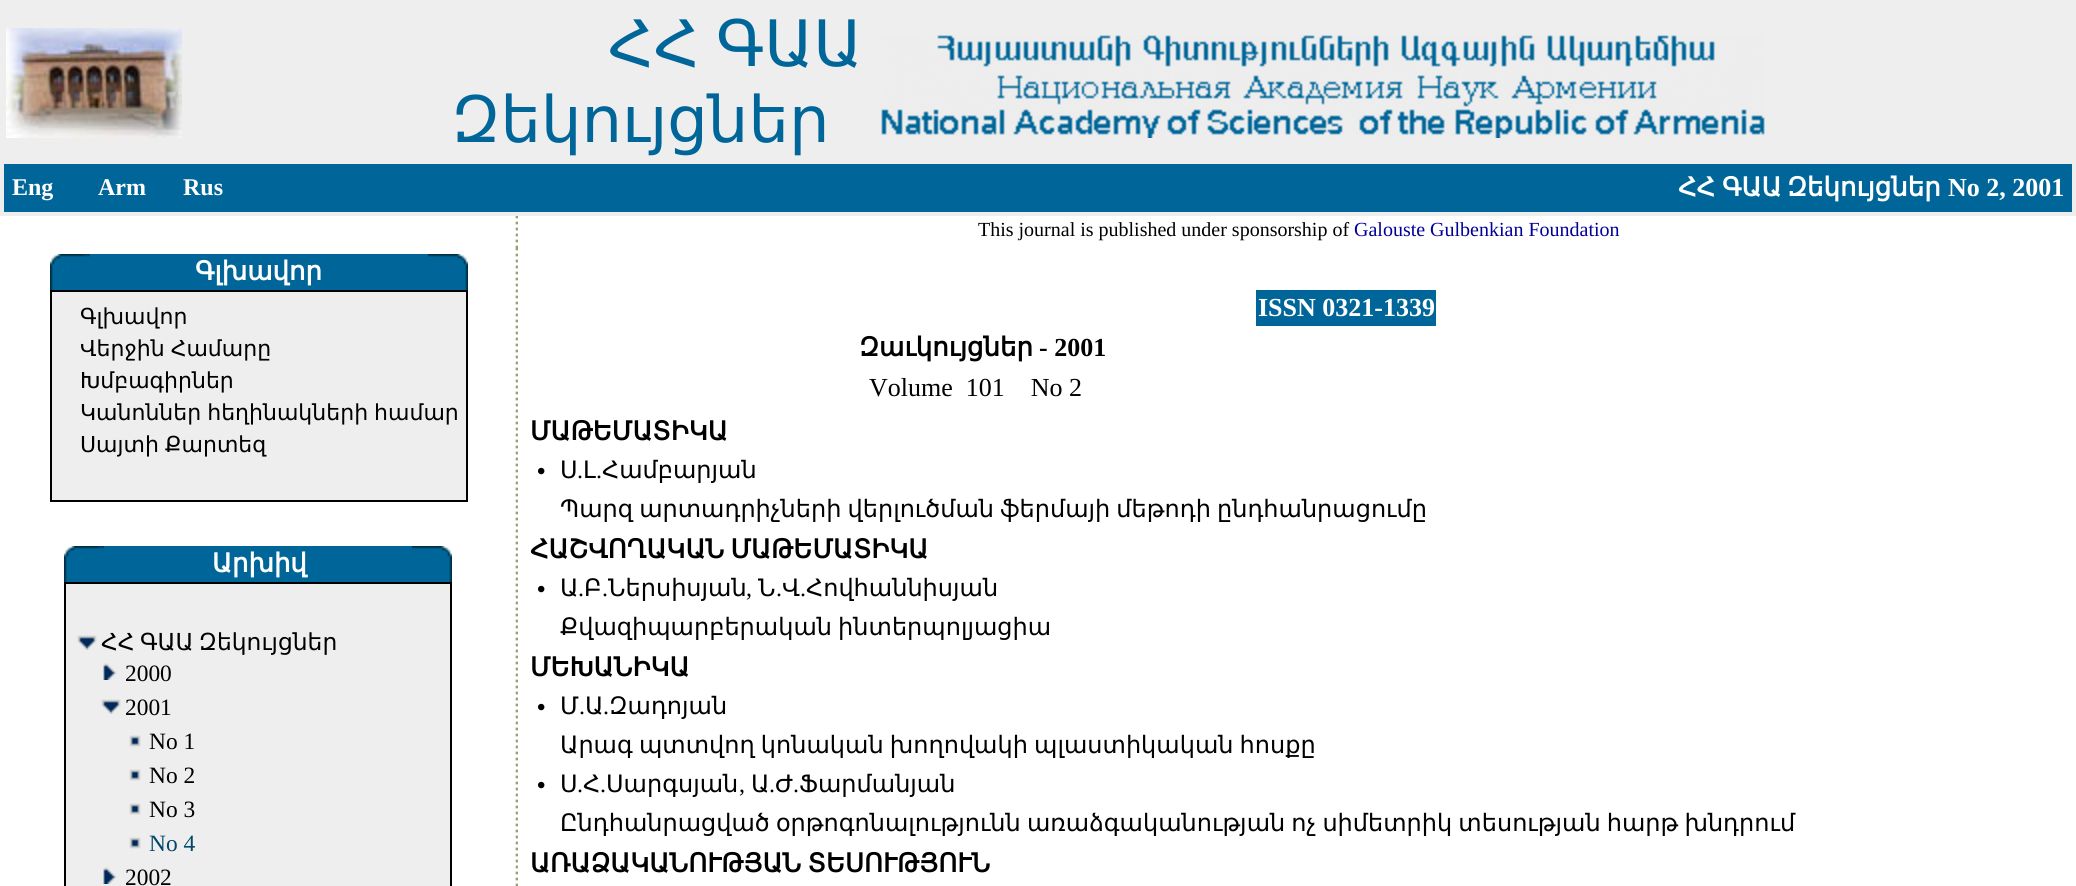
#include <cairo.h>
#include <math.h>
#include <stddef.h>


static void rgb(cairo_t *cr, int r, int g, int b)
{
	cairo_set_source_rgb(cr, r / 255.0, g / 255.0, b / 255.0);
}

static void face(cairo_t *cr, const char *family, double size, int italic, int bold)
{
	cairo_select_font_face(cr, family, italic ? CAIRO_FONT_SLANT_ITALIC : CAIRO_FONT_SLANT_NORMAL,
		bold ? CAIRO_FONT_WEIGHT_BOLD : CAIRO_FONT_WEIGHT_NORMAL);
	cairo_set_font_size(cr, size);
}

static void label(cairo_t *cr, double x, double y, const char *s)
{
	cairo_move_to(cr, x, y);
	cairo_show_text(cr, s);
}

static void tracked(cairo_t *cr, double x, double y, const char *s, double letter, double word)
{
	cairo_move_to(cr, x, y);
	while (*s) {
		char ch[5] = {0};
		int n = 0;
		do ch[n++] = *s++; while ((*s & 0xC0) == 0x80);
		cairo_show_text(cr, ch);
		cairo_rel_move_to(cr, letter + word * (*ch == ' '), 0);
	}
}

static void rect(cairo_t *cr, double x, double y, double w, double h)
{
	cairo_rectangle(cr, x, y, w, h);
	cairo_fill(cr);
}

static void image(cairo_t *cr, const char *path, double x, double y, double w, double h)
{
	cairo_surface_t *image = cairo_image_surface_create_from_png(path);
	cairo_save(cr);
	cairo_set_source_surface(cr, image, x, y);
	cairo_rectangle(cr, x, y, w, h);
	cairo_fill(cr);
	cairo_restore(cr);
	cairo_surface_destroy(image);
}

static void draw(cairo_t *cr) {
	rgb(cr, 255, 255, 255);
	cairo_paint(cr);
	rgb(cr, 238, 238, 238);
	rect(cr, 0, 0, 2076, 216);
	image(cr, "image0.png", 6, 28, 176, 110);
	face(cr, "DejaVu Sans", 64, 0, 0);
	rgb(cr, 0, 102, 153);
	tracked(cr, 608, 66, "ՀՀ ԳԱԱ", 0, -4);
	label(cr, 451, 142, "Զեկույցներ");
	image(cr, "image1.png", 881, 35, 884, 103);
	rect(cr, 4, 164, 2068, 48);
	face(cr, "Liberation Serif", 24, 0, 1);
	rgb(cr, 255, 255, 255);
	label(cr, 12, 195, "Eng");
	label(cr, 98, 195, "Arm");
	label(cr, 183, 195, "Rus");
	face(cr, "DejaVu Sans", 26, 0, 1);
	label(cr, 1678, 196, "ՀՀ");
	label(cr, 1722, 196, "ԳԱԱ");
	label(cr, 1787, 196, "Զեկույցներ");
	face(cr, "Liberation Serif", 26, 0, 1);
	label(cr, 1948, 196, "No 2, 2001");
	image(cr, "image2.png", 515, 216, 3, 32);
	face(cr, "Liberation Serif", 20, 0, 0);
	rgb(cr, 0, 0, 0);
	label(cr, 978, 236, "This journal is published under sponsorship of");
	rgb(cr, 0, 0, 153);
	label(cr, 1354, 236, "Galouste Gulbenkian Foundation");
	rgb(cr, 0, 102, 153);
	rect(cr, 90, 254, 338, 36);
	image(cr, "image3.png", 50, 254, 40, 36);
	face(cr, "DejaVu Sans", 26, 0, 1);
	rgb(cr, 255, 255, 255);
	label(cr, 195, 280, "Գլխավոր");
	image(cr, "image4.png", 428, 254, 40, 36);
	rgb(cr, 0, 0, 0);
	rect(cr, 50, 290, 418, 212);
	rgb(cr, 238, 238, 238);
	rect(cr, 52, 292, 414, 208);
	face(cr, "DejaVu Sans", 22, 0, 0);
	rgb(cr, 0, 0, 0);
	label(cr, 80, 324, "Գլխավոր");
	tracked(cr, 80, 356, "Վերջին Համարը", 0, -1);
	label(cr, 80, 388, "Խմբագիրներ");
	tracked(cr, 80, 420, "Կանոններ հեղինակների համար", 0, -1);
	tracked(cr, 80, 452, "Սայտի Քարտեզ", 0, -1);
	rgb(cr, 0, 102, 153);
	rect(cr, 104, 546, 308, 36);
	image(cr, "image3.png", 64, 546, 40, 36);
	face(cr, "DejaVu Sans", 26, 0, 1);
	rgb(cr, 255, 255, 255);
	label(cr, 212, 572, "Արխիվ");
	image(cr, "image4.png", 412, 546, 40, 36);
	rgb(cr, 0, 0, 0);
	rect(cr, 64, 582, 388, 304);
	rgb(cr, 238, 238, 238);
	rect(cr, 66, 584, 384, 302);
	image(cr, "image5.png", 77, 635, 20, 15);
	face(cr, "DejaVu Sans", 23.4, 0, 0);
	rgb(cr, 0, 0, 0);
	tracked(cr, 101, 650, "ՀՀ ԳԱԱ Զեկույցներ", 0, -2);
	image(cr, "image6.png", 103, 663, 14, 17);
	face(cr, "Liberation Serif", 23.4, 0, 0);
	label(cr, 125, 681, "2000");
	image(cr, "image5.png", 101, 699, 20, 15);
	label(cr, 125, 715, "2001");
	image(cr, "image7.png", 129, 735, 12, 12);
	label(cr, 149, 749, "No 1");
	image(cr, "image7.png", 129, 769, 12, 12);
	label(cr, 149, 783, "No 2");
	image(cr, "image7.png", 129, 803, 12, 12);
	label(cr, 149, 817, "No 3");
	image(cr, "image7.png", 129, 837, 12, 12);
	rgb(cr, 0, 73, 108);
	label(cr, 149, 851, "No 4");
	image(cr, "image6.png", 103, 867, 14, 17);
	rgb(cr, 0, 0, 0);
	label(cr, 125, 885, "2002");
	image(cr, "image8.png", 515, 248, 3, 638);
	rgb(cr, 0, 102, 153);
	rect(cr, 1256, 290, 180, 36);
	face(cr, "Liberation Serif", 26, 0, 1);
	rgb(cr, 255, 255, 255);
	label(cr, 1258, 316, "ISSN 0321-1339");
	face(cr, "DejaVu Sans", 26, 0, 1);
	rgb(cr, 0, 0, 0);
	label(cr, 859, 356, "Զաւկույցներ");
	face(cr, "Liberation Serif", 26, 0, 1);
	label(cr, 1039, 356, "- 2001");
	face(cr, "Liberation Serif", 26, 0, 0);
	label(cr, 869, 396, "Volume  101    No 2");
	face(cr, "DejaVu Sans", 26, 0, 1);
	label(cr, 530, 440, "ՄԱԹԵՄԱՏԻԿԱ");
	face(cr, "Liberation Sans", 24, 0, 0);
	label(cr, 537, 479, "•");
	face(cr, "DejaVu Sans", 24, 0, 0);
	label(cr, 560, 478, "Ս");
	face(cr, "Liberation Serif", 24, 0, 0);
	label(cr, 577, 478, ".");
	face(cr, "DejaVu Sans", 24, 0, 0);
	label(cr, 583, 478, "Լ");
	face(cr, "Liberation Serif", 24, 0, 0);
	label(cr, 596, 478, ".");
	face(cr, "DejaVu Sans", 24, 0, 0);
	label(cr, 602, 478, "Համբարյան");
	tracked(cr, 560, 517, "Պարզ արտադրիչների վերլուծման ֆերմայի մեթոդի ընդհանրացումը", 0, -1.5);
	face(cr, "DejaVu Sans", 26, 0, 1);
	tracked(cr, 530, 558, "ՀԱՇՎՈՂԱԿԱՆ ՄԱԹԵՄԱՏԻԿԱ", 0, -2);
	face(cr, "Liberation Sans", 24, 0, 0);
	label(cr, 537, 597, "•");
	face(cr, "DejaVu Sans", 24, 0, 0);
	label(cr, 560, 596, "Ա");
	face(cr, "Liberation Serif", 24, 0, 0);
	label(cr, 578, 596, ".");
	face(cr, "DejaVu Sans", 24, 0, 0);
	label(cr, 584, 596, "Բ");
	face(cr, "Liberation Serif", 24, 0, 0);
	label(cr, 602, 596, ".");
	face(cr, "DejaVu Sans", 24, 0, 0);
	label(cr, 608, 596, "Ներսիսյան");
	face(cr, "Liberation Serif", 24, 0, 0);
	label(cr, 746, 596, ",");
	face(cr, "DejaVu Sans", 24, 0, 0);
	label(cr, 758, 596, "Ն");
	face(cr, "Liberation Serif", 24, 0, 0);
	label(cr, 776, 596, ".");
	face(cr, "DejaVu Sans", 24, 0, 0);
	label(cr, 782, 596, "Վ");
	face(cr, "Liberation Serif", 24, 0, 0);
	label(cr, 800, 596, ".");
	face(cr, "DejaVu Sans", 24, 0, 0);
	label(cr, 806, 596, "Հովհաննիսյան");
	tracked(cr, 560, 635, "Քվազիպարբերական ինտերպոլյացիա", 0, -1.5);
	face(cr, "DejaVu Sans", 26, 0, 1);
	label(cr, 530, 676, "ՄԵԽԱՆԻԿԱ");
	face(cr, "Liberation Sans", 24, 0, 0);
	label(cr, 537, 715, "•");
	face(cr, "DejaVu Sans", 24, 0, 0);
	label(cr, 560, 714, "Մ");
	face(cr, "Liberation Serif", 24, 0, 0);
	label(cr, 579, 714, ".");
	face(cr, "DejaVu Sans", 24, 0, 0);
	label(cr, 585, 714, "Ա");
	face(cr, "Liberation Serif", 24, 0, 0);
	label(cr, 603, 714, ".");
	face(cr, "DejaVu Sans", 24, 0, 0);
	label(cr, 609, 714, "Զադոյան");
	tracked(cr, 560, 753, "Արագ պտտվող կոնական խողովակի պլաստիկական հոսքը", 0, -1.5);
	face(cr, "Liberation Sans", 24, 0, 0);
	label(cr, 537, 793, "•");
	face(cr, "DejaVu Sans", 24, 0, 0);
	label(cr, 560, 792, "Ս");
	face(cr, "Liberation Serif", 24, 0, 0);
	label(cr, 577, 792, ".");
	face(cr, "DejaVu Sans", 24, 0, 0);
	label(cr, 583, 792, "Հ");
	face(cr, "Liberation Serif", 24, 0, 0);
	label(cr, 600, 792, ".");
	face(cr, "DejaVu Sans", 24, 0, 0);
	label(cr, 606, 792, "Սարգսյան");
	face(cr, "Liberation Serif", 24, 0, 0);
	label(cr, 739, 792, ",");
	face(cr, "DejaVu Sans", 24, 0, 0);
	label(cr, 751, 792, "Ա");
	face(cr, "Liberation Serif", 24, 0, 0);
	label(cr, 769, 792, ".");
	face(cr, "DejaVu Sans", 24, 0, 0);
	label(cr, 775, 792, "Ժ");
	face(cr, "Liberation Serif", 24, 0, 0);
	label(cr, 793, 792, ".");
	face(cr, "DejaVu Sans", 24, 0, 0);
	label(cr, 799, 792, "Ֆարմանյան");
	tracked(cr, 560, 831, "Ընդհանրացված օրթոգոնալությունն առաձգականության ոչ սիմետրիկ տեսության հարթ խնդրում", 0, -1.5);
	face(cr, "DejaVu Sans", 26, 0, 1);
	tracked(cr, 530, 872, "ԱՌԱՁԱԿԱՆՈՒԹՅԱՆ ՏԵՍՈՒԹՅՈՒՆ", 0, -2);
}

int main(void) {
	cairo_surface_t *surface = cairo_image_surface_create(CAIRO_FORMAT_RGB24, 2076, 886);
	cairo_t *cr = cairo_create(surface);
	cairo_font_options_t *options = cairo_font_options_create();
	cairo_font_options_set_hint_metrics(options, CAIRO_HINT_METRICS_OFF);
	cairo_font_options_set_hint_style(options, CAIRO_HINT_STYLE_NONE);
	cairo_set_font_options(cr, options);
	cairo_set_miter_limit(cr, 4);
	draw(cr);
	cairo_surface_write_to_png(surface, "render.png");
	cairo_font_options_destroy(options);
	cairo_destroy(cr);
	cairo_surface_destroy(surface);
	return 0;
}
